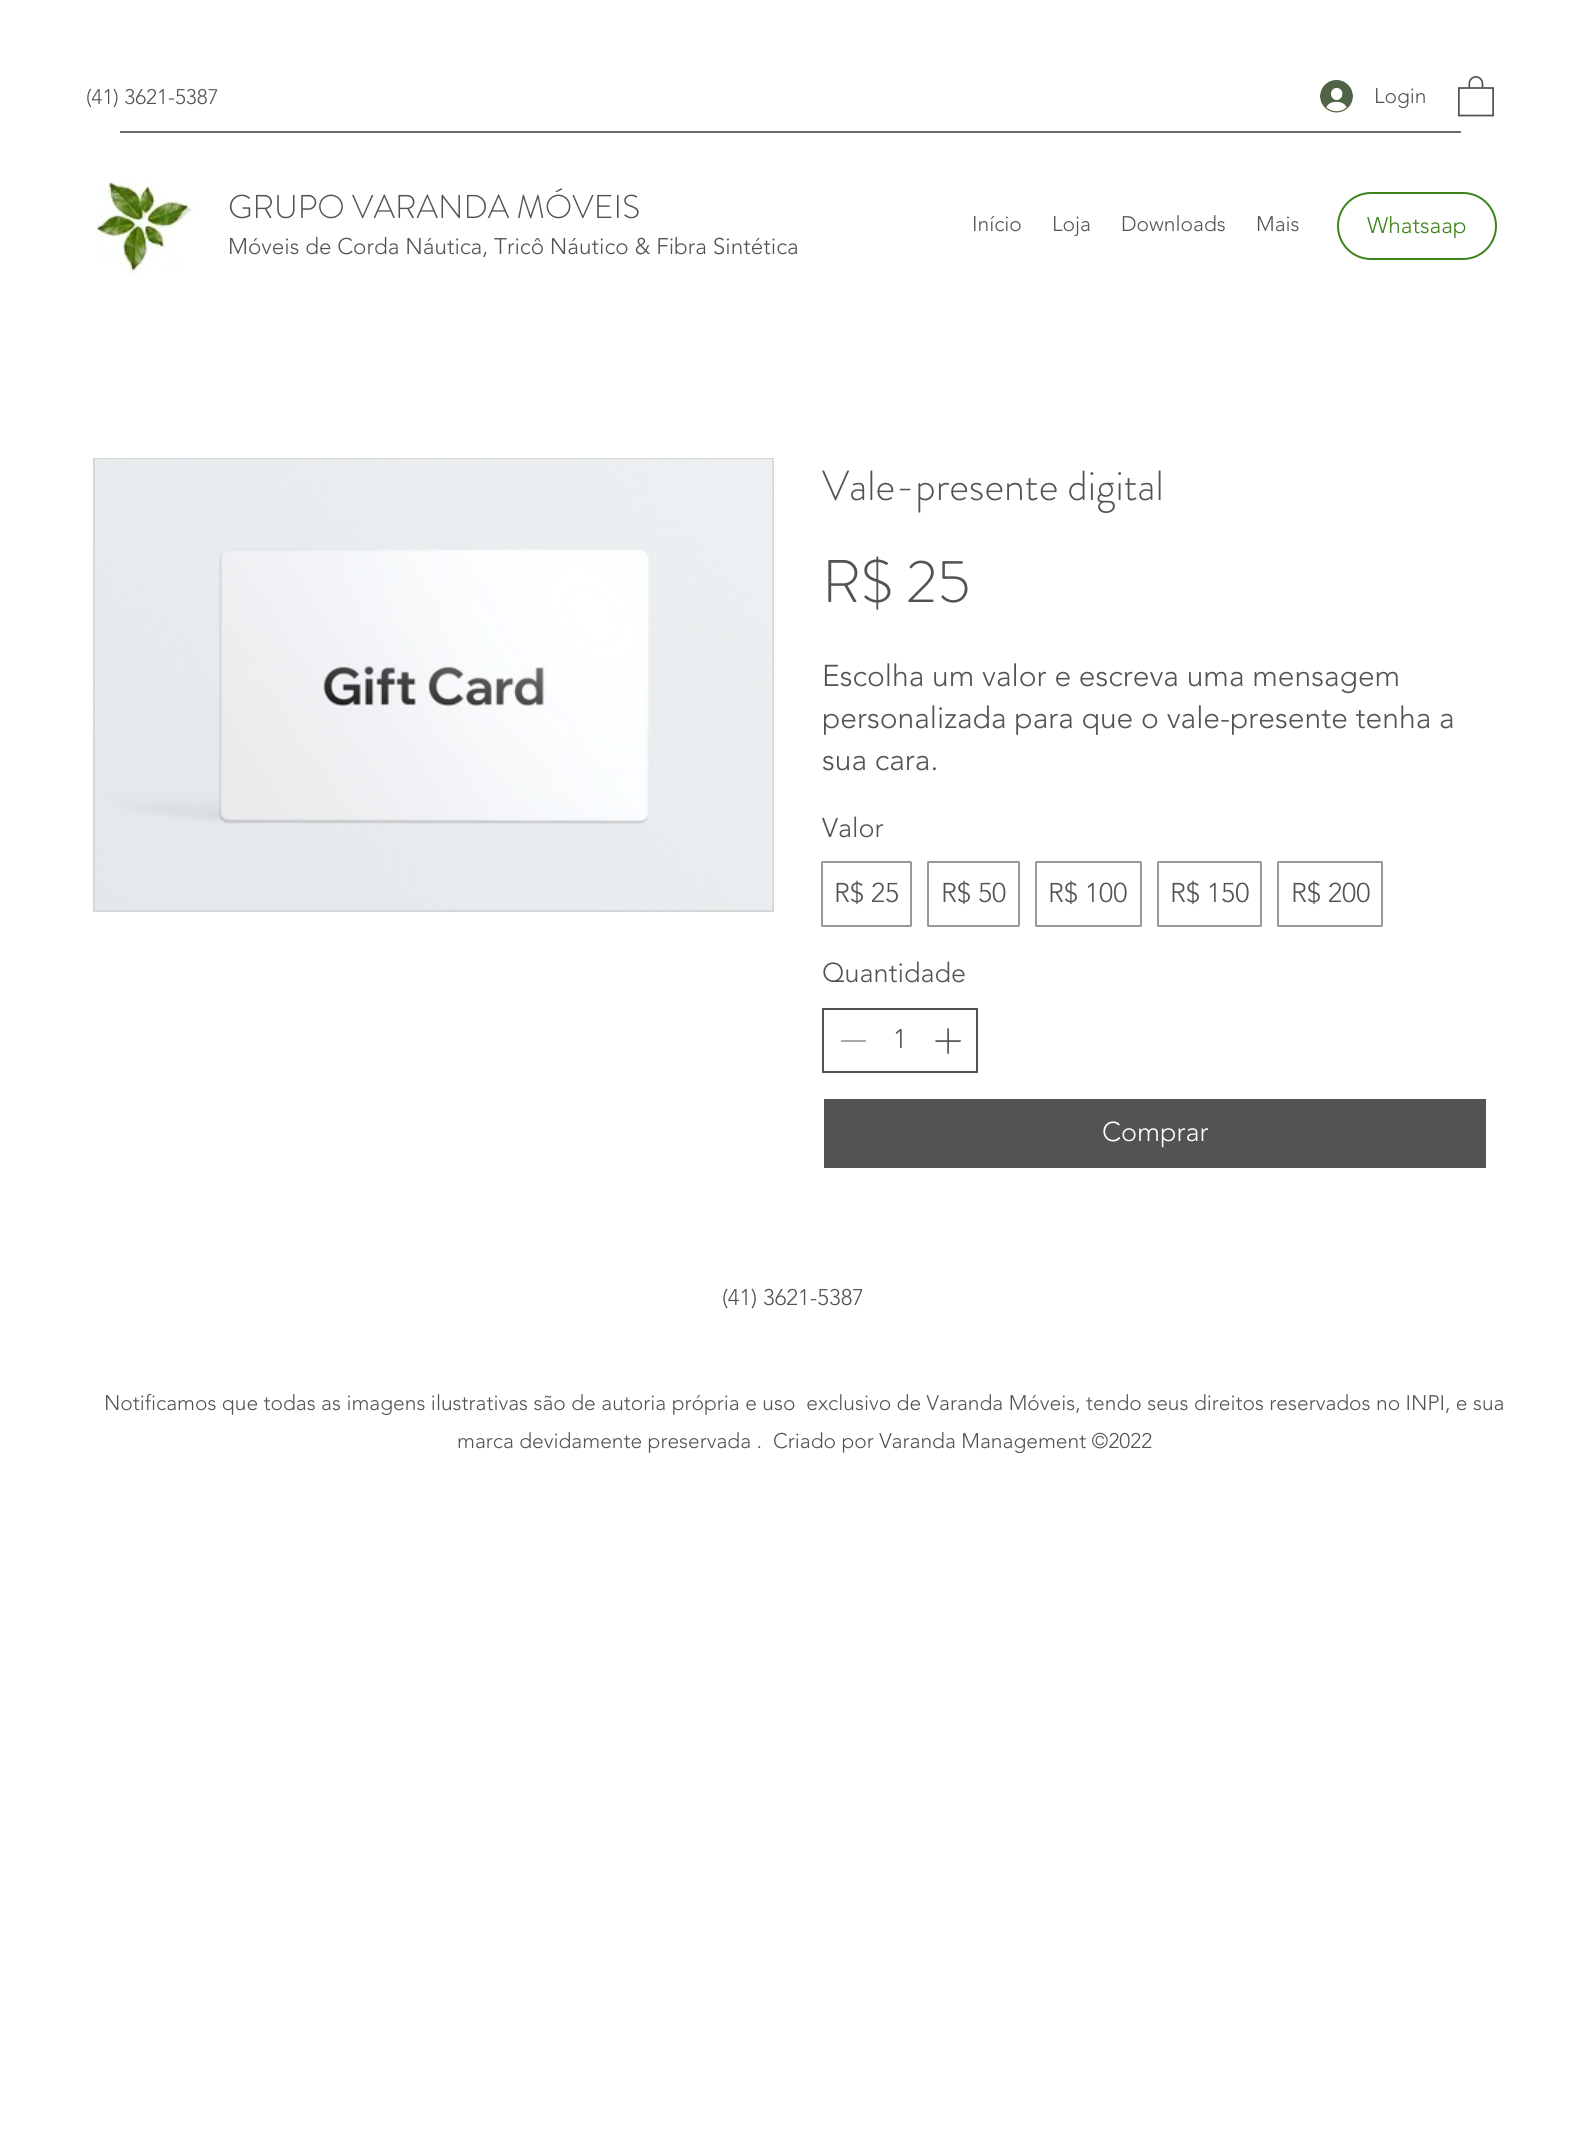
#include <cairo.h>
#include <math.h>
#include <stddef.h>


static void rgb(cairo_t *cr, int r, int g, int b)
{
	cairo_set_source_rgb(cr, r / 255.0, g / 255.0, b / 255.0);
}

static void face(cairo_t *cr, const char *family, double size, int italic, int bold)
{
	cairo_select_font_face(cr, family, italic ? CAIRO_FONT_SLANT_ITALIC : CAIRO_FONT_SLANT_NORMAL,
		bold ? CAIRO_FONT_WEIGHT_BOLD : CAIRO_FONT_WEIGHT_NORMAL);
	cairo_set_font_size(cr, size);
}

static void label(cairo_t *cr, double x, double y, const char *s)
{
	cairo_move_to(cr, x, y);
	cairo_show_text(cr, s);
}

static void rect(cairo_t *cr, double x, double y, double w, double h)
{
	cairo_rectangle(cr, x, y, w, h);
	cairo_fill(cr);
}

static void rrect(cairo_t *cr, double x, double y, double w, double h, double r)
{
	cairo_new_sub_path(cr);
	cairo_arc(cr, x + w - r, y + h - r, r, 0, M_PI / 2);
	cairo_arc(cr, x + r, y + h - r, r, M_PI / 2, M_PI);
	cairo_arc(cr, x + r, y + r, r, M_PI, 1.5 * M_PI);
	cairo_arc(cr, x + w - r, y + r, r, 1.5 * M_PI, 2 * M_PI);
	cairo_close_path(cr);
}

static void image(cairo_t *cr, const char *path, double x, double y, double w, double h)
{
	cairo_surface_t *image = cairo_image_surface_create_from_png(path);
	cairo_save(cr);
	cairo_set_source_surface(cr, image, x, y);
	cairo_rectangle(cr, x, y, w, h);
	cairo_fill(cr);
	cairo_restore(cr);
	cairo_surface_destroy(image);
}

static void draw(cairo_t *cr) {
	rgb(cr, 255, 255, 255);
	cairo_paint(cr);
	face(cr, "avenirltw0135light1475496 Light", 21, 0, 0);
	rgb(cr, 83, 83, 83);
	label(cr, 86, 104, "(41) 3621-5387");
	image(cr, "image0.png", 1320, 80, 33, 33);
	label(cr, 1374, 103, "Login");
	image(cr, "image1.png", 1458, 76, 36, 41);
	rgb(cr, 109, 109, 109);
	rect(cr, 120, 131, 1341, 2);
	image(cr, "image2.png", 96, 177, 98, 96);
	face(cr, "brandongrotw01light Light", 33, 0, 0);
	rgb(cr, 83, 83, 83);
	label(cr, 228, 218, "GRUPO VARANDA MÓVEIS");
	face(cr, "avenirltw0135light1475496 Light", 22.5, 0, 0);
	label(cr, 228, 254, "Móveis de Corda Náutica, Tricô Náutico & Fibra Sintética");
	face(cr, "avenirltw0135light1475496 Light", 21, 0, 0);
	label(cr, 972, 231, "Início");
	label(cr, 1052, 231, "Loja");
	label(cr, 1121, 231, "Downloads");
	label(cr, 1256, 231, "Mais");
	rrect(cr, 1338, 193, 158, 66, 33);
	rgb(cr, 60, 132, 27);
	cairo_stroke(cr);
	face(cr, "avenirltw0135light1475496 Light", 22.5, 0, 0);
	label(cr, 1367, 233, "Whatsaap");
	cairo_rectangle(cr, 94, 459, 679, 452);
	rgb(cr, 212, 212, 212);
	cairo_stroke(cr);
	image(cr, "image3.png", 94, 459, 679, 452);
	face(cr, "brandongrotw01light Light", 42, 0, 0);
	rgb(cr, 83, 83, 83);
	label(cr, 822, 500, "Vale-presente digital");
	face(cr, "brandongrotw01light Light", 60, 0, 0);
	label(cr, 822, 602, "R$ 25");
	face(cr, "avenirltw0135light1475496 Light", 30, 0, 0);
	label(cr, 822, 686, "Escolha um valor e escreva uma mensagem");
	label(cr, 822, 728, "personalizada para que o vale-presente tenha a");
	label(cr, 822, 770, "sua cara.");
	face(cr, "avenirltw0135light1475496 Light", 27, 0, 0);
	label(cr, 822, 837, "Valor");
	rrect(cr, 822, 862, 89, 64, 0.5);
	rgb(cr, 152, 152, 152);
	cairo_stroke(cr);
	rgb(cr, 83, 83, 83);
	label(cr, 834, 902, "R$ 25");
	rrect(cr, 928, 862, 91, 64, 0.5);
	rgb(cr, 152, 152, 152);
	cairo_stroke(cr);
	rgb(cr, 83, 83, 83);
	label(cr, 941, 902, "R$ 50");
	rrect(cr, 1036, 862, 105, 64, 0.5);
	rgb(cr, 152, 152, 152);
	cairo_stroke(cr);
	rgb(cr, 83, 83, 83);
	label(cr, 1048, 902, "R$ 100");
	rrect(cr, 1158, 862, 103, 64, 0.5);
	rgb(cr, 152, 152, 152);
	cairo_stroke(cr);
	rgb(cr, 83, 83, 83);
	label(cr, 1170, 902, "R$ 150");
	rrect(cr, 1278, 862, 104, 64, 0.5);
	rgb(cr, 152, 152, 152);
	cairo_stroke(cr);
	rgb(cr, 83, 83, 83);
	label(cr, 1291, 902, "R$ 200");
	label(cr, 822, 982, "Quantidade");
	cairo_rectangle(cr, 823, 1009, 154, 63);
	cairo_stroke(cr);
	rgb(cr, 169, 169, 169);
	rect(cr, 841, 1040, 25, 2);
	rgb(cr, 83, 83, 83);
	label(cr, 893, 1048, "1");
	image(cr, "image4.png", 935, 1028, 26, 26);
	rrect(cr, 823, 1098, 664, 71, 0.5);
	cairo_fill_preserve(cr);
	rgb(cr, 255, 255, 255);
	cairo_stroke(cr);
	label(cr, 1102, 1141, "Comprar");
	face(cr, "avenirltw0135light1475496 Light", 22.5, 0, 0);
	rgb(cr, 83, 83, 83);
	label(cr, 722, 1305, "(41) 3621-5387");
	face(cr, "avenirltw0135light1475496 Light", 21, 0, 0);
	label(cr, 104, 1410, "Notificamos que todas as imagens ilustrativas são de autoria própria e uso  exclusivo de Varanda Móveis, tendo seus direitos reservados no INPI, e sua");
	label(cr, 457, 1448, "marca devidamente preservada .  Criado por Varanda Management ©2022");
}

int main(void) {
	cairo_surface_t *surface = cairo_image_surface_create(CAIRO_FORMAT_RGB24, 1581, 2140);
	cairo_t *cr = cairo_create(surface);
	cairo_font_options_t *options = cairo_font_options_create();
	cairo_font_options_set_hint_metrics(options, CAIRO_HINT_METRICS_OFF);
	cairo_font_options_set_hint_style(options, CAIRO_HINT_STYLE_NONE);
	cairo_set_font_options(cr, options);
	cairo_set_miter_limit(cr, 4);
	draw(cr);
	cairo_surface_write_to_png(surface, "render.png");
	cairo_font_options_destroy(options);
	cairo_destroy(cr);
	cairo_surface_destroy(surface);
	return 0;
}
